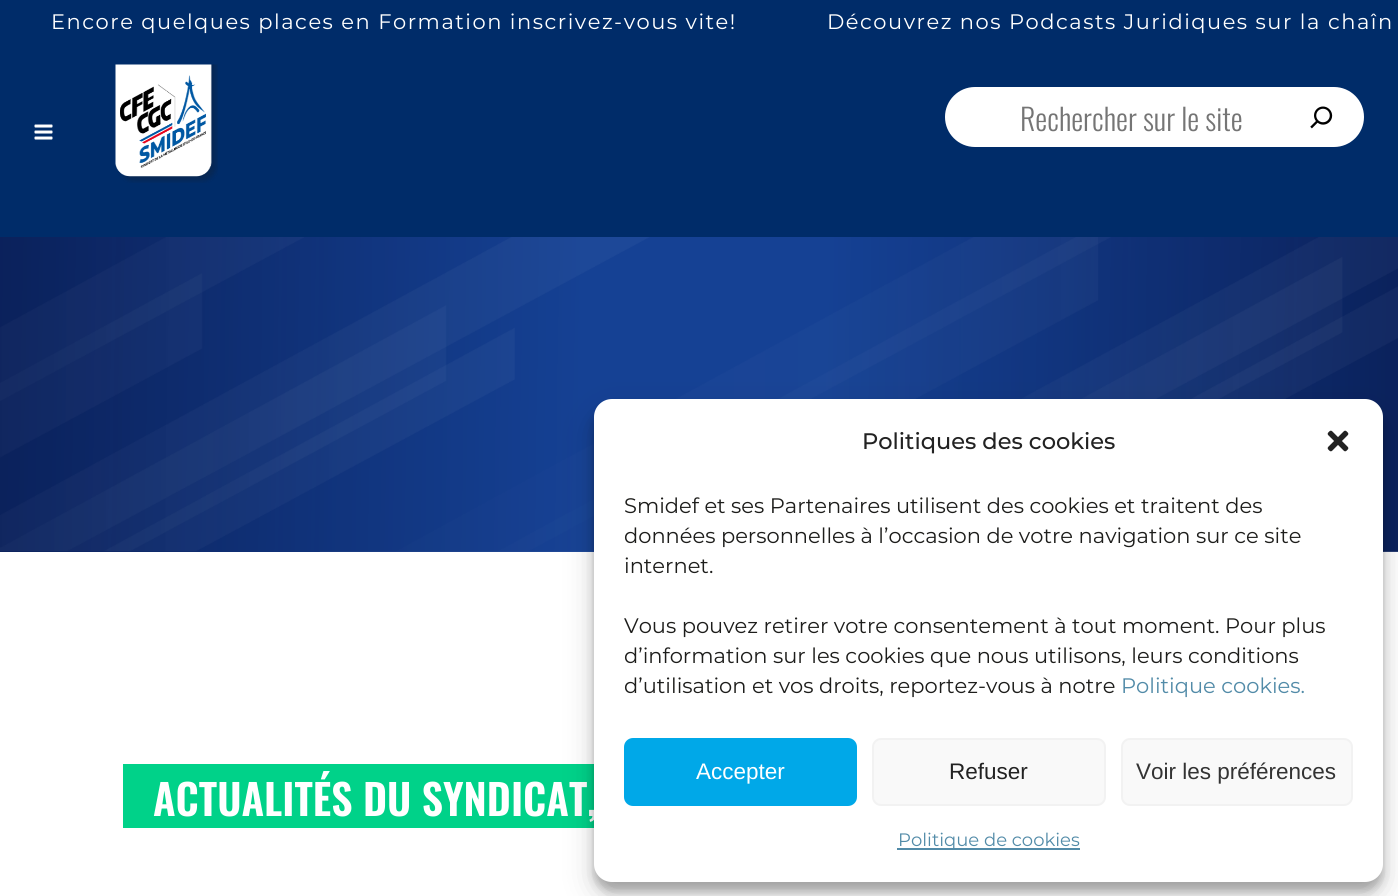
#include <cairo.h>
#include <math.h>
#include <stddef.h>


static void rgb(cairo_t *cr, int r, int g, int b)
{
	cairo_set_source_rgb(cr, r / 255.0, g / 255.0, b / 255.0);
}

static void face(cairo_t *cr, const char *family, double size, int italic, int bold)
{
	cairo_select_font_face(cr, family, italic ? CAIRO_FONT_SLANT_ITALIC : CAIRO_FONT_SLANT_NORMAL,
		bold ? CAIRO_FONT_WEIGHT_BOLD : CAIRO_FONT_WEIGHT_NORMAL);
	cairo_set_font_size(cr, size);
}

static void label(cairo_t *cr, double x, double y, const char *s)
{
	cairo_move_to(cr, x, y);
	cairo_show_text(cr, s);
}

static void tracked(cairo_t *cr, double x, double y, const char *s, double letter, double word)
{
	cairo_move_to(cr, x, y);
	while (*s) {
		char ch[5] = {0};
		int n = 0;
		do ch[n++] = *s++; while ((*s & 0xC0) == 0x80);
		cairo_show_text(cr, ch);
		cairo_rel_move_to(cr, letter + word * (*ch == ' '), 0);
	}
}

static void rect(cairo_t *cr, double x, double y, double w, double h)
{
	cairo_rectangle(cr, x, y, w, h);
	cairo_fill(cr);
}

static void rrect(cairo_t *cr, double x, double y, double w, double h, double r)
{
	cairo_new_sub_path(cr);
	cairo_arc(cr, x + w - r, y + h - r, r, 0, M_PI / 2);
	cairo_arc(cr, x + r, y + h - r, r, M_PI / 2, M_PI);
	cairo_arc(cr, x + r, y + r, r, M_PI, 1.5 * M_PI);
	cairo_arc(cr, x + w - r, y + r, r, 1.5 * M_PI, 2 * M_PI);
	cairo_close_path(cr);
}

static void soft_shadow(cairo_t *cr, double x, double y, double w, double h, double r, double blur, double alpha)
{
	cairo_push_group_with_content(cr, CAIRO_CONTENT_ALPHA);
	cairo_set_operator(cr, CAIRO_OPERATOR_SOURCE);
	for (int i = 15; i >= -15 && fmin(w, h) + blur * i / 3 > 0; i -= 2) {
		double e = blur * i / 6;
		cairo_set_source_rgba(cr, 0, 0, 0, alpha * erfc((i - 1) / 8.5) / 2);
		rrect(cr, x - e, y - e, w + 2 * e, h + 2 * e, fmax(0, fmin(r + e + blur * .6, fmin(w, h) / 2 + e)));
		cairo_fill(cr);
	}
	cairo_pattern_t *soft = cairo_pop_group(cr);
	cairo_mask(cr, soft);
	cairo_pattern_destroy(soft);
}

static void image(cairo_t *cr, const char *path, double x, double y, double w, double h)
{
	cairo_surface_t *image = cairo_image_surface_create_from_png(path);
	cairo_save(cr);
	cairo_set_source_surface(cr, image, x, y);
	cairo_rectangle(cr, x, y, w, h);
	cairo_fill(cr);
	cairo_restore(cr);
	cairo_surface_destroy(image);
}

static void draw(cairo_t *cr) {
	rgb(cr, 255, 255, 255);
	cairo_paint(cr);
	rgb(cr, 0, 44, 105);
	rect(cr, 0, 0, 1398, 237);
	face(cr, "Montserrat", 21, 0, 0);
	rgb(cr, 255, 255, 255);
	tracked(cr, 51, 29, "Encore quelques places en Formation inscrivez-vous vite!", 1.5, 0);
	tracked(cr, 827, 29, "Découvrez nos Podcasts Juridiques sur la chaîn", 1.5, 0);
	image(cr, "image0.png", 34, 124, 19, 16);
	image(cr, "image1.png", 115, 64, 103, 119);
	rrect(cr, 945, 87, 419, 60, 30);
	cairo_fill(cr);
	face(cr, "Oswald Light", 30, 0, 0);
	rgb(cr, 117, 117, 117);
	label(cr, 1020, 131, "Rechercher sur le site");
	image(cr, "image2.png", 1310, 106, 23, 23);
	image(cr, "image3.png", 0, 237, 1398, 315);
	rgb(cr, 0, 210, 137);
	rect(cr, 123, 764, 471, 64);
	face(cr, "Oswald SemiBold", 42, 0, 0);
	rgb(cr, 255, 255, 255);
	label(cr, 153, 816, "ACTUALITÉS DU SYNDICAT,");
	rgb(cr, 0, 0, 0);
	soft_shadow(cr, 594, 408, 789, 483, 18, 4.5, 0.23);
	soft_shadow(cr, 594, 414, 789, 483, 18, 15, 0.19);
	rgb(cr, 255, 255, 255);
	rrect(cr, 594, 399, 789, 483, 18);
	cairo_fill(cr);
	face(cr, "Montserrat Medium", 22.5, 0, 0);
	rgb(cr, 34, 34, 34);
	label(cr, 862, 449, "Politiques des cookies");
	image(cr, "image4.png", 1327, 430, 22, 22);
	face(cr, "Montserrat", 21, 0, 0);
	rgb(cr, 29, 29, 27);
	label(cr, 624, 513, "Smidef et ses Partenaires utilisent des cookies et traitent des");
	label(cr, 624, 543, "données personnelles à l’occasion de votre navigation sur ce site");
	label(cr, 624, 573, "internet.");
	label(cr, 624, 633, "Vous pouvez retirer votre consentement à tout moment. Pour plus");
	label(cr, 624, 663, "d’information sur les cookies que nous utilisons, leurs conditions");
	label(cr, 624, 693, "d’utilisation et vos droits, reportez-vous à notre");
	rgb(cr, 82, 139, 168);
	label(cr, 1121, 693, "Politique cookies.");
	rgb(cr, 0, 168, 232);
	rrect(cr, 625, 739, 231, 66, 8);
	cairo_fill_preserve(cr);
	cairo_stroke(cr);
	face(cr, "Liberation Sans", 22.5, 0, 0);
	rgb(cr, 255, 255, 255);
	label(cr, 696, 779, "Accepter");
	rgb(cr, 249, 249, 249);
	rrect(cr, 873, 739, 232, 66, 8);
	cairo_fill_preserve(cr);
	rgb(cr, 242, 242, 242);
	cairo_stroke(cr);
	rgb(cr, 34, 34, 34);
	label(cr, 949, 779, "Refuser");
	rgb(cr, 249, 249, 249);
	rrect(cr, 1122, 739, 230, 66, 8);
	cairo_fill_preserve(cr);
	rgb(cr, 242, 242, 242);
	cairo_stroke(cr);
	rgb(cr, 51, 51, 51);
	label(cr, 1136, 779, "Voir les préférences");
	rgb(cr, 82, 139, 168);
	rect(cr, 897, 848, 183, 2);
	face(cr, "Montserrat", 18, 0, 0);
	label(cr, 898, 846, "Politique de cookies");
}

int main(void) {
	cairo_surface_t *surface = cairo_image_surface_create(CAIRO_FORMAT_RGB24, 1398, 896);
	cairo_t *cr = cairo_create(surface);
	cairo_font_options_t *options = cairo_font_options_create();
	cairo_font_options_set_hint_metrics(options, CAIRO_HINT_METRICS_OFF);
	cairo_font_options_set_hint_style(options, CAIRO_HINT_STYLE_NONE);
	cairo_set_font_options(cr, options);
	cairo_set_miter_limit(cr, 4);
	draw(cr);
	cairo_surface_write_to_png(surface, "render.png");
	cairo_font_options_destroy(options);
	cairo_destroy(cr);
	cairo_surface_destroy(surface);
	return 0;
}
